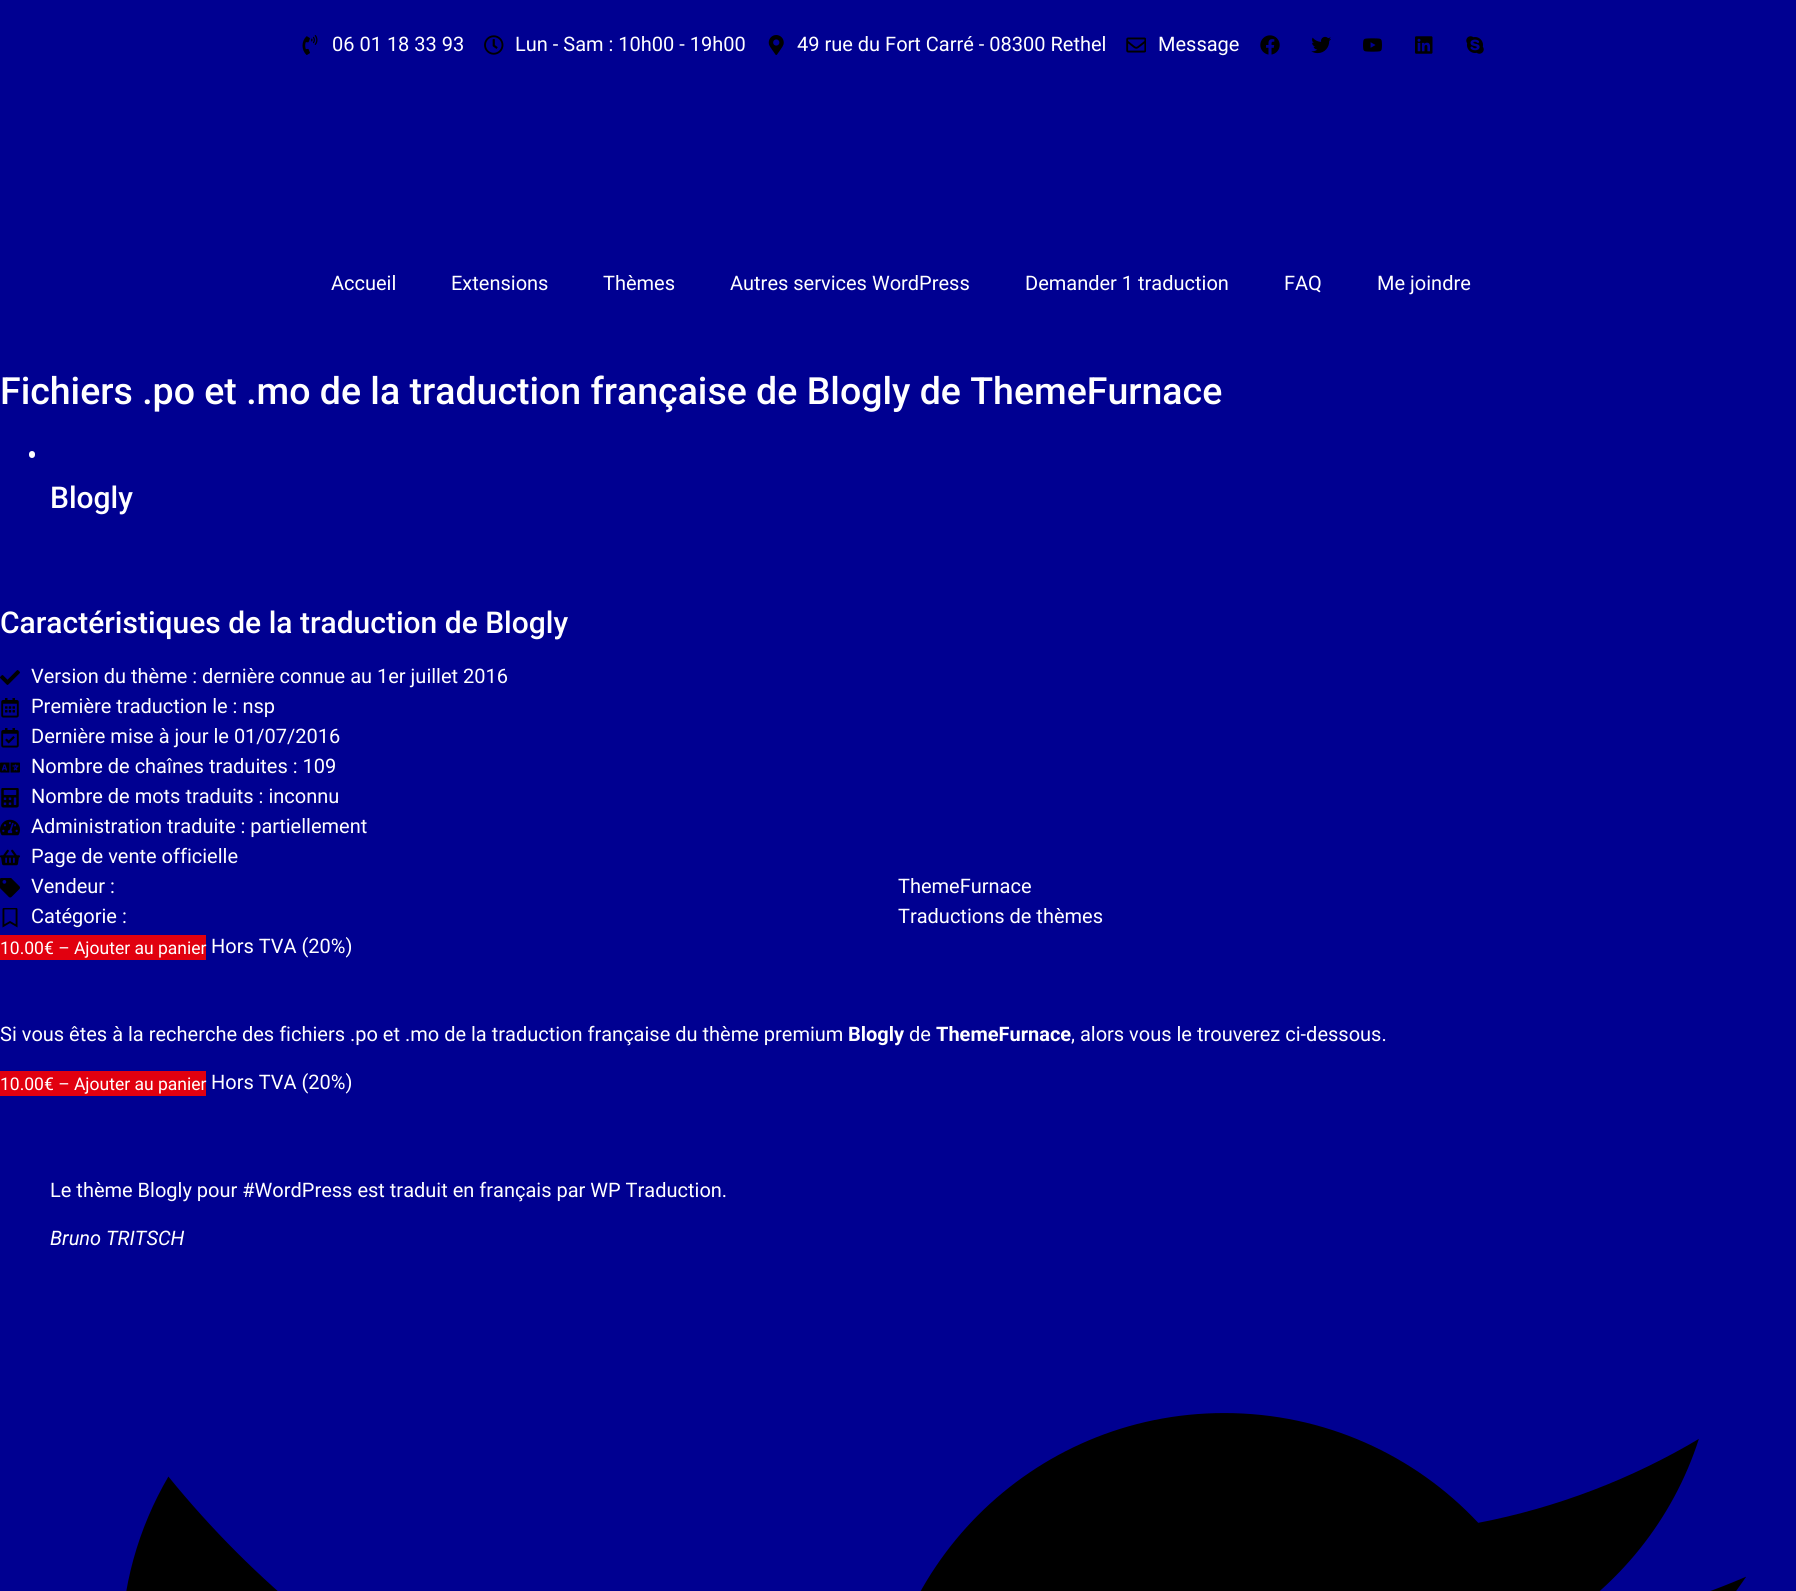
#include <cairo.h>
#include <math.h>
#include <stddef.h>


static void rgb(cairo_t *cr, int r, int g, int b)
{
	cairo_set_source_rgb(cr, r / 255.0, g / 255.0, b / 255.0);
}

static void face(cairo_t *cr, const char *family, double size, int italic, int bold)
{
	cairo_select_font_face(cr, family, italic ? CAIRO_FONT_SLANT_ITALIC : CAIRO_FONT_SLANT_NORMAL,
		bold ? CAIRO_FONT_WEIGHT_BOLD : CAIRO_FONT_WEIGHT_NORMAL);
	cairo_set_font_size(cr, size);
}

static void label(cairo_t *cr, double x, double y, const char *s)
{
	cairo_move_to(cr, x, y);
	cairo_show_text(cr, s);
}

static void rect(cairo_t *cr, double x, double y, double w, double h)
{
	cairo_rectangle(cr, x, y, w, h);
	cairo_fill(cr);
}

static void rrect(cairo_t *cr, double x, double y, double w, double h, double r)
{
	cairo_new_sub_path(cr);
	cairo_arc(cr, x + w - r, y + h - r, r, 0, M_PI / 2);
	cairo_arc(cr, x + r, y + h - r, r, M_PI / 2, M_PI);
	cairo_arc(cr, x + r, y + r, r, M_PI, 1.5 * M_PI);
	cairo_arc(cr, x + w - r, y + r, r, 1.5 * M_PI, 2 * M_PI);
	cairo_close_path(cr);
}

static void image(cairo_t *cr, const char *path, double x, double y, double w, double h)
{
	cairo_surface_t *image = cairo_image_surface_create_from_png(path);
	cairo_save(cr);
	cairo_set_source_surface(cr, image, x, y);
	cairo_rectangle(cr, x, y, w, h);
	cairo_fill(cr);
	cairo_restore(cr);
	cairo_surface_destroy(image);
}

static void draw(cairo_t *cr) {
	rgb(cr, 0, 0, 145);
	cairo_paint(cr);
	image(cr, "image0.png", 302, 35, 16, 20);
	face(cr, "Roboto", 20, 0, 0);
	rgb(cr, 255, 255, 255);
	label(cr, 332, 51, "06 01 18 33 93");
	image(cr, "image1.png", 484, 35, 20, 20);
	label(cr, 515, 51, "Lun - Sam : 10h00 - 19h00");
	image(cr, "image2.png", 768, 35, 16, 20);
	label(cr, 797, 51, "49 rue du Fort Carré - 08300 Rethel");
	image(cr, "image3.png", 1126, 37, 20, 16);
	label(cr, 1158, 51, "Message");
	image(cr, "image4.png", 1260, 35, 20, 20);
	image(cr, "image5.png", 1311, 36, 20, 18);
	image(cr, "image6.png", 1363, 38, 19, 14);
	image(cr, "image7.png", 1415, 36, 18, 18);
	image(cr, "image8.png", 1466, 36, 18, 18);
	label(cr, 331, 290, "Accueil");
	label(cr, 451, 290, "Extensions");
	label(cr, 603, 290, "Thèmes");
	label(cr, 730, 290, "Autres services WordPress");
	label(cr, 1025, 290, "Demander 1 traduction");
	label(cr, 1284, 290, "FAQ");
	label(cr, 1377, 290, "Me joindre");
	face(cr, "Roboto Medium", 37.5, 0, 0);
	label(cr, 0, 404, "Fichiers .po et .mo de la traduction française de Blogly de ThemeFurnace");
	rrect(cr, 29, 451, 6, 7, 3);
	cairo_fill(cr);
	face(cr, "Roboto Medium", 30, 0, 0);
	label(cr, 50, 508, "Blogly");
	label(cr, 0, 633, "Caractéristiques de la traduction de Blogly");
	image(cr, "image9.png", 0, 670, 20, 15);
	face(cr, "Roboto", 20, 0, 0);
	label(cr, 31, 683, "Version du thème : dernière connue au 1er juillet 2016");
	image(cr, "image10.png", 1, 698, 18, 20);
	label(cr, 31, 713, "Première traduction le : nsp");
	image(cr, "image11.png", 1, 728, 18, 20);
	label(cr, 31, 743, "Dernière mise à jour le 01/07/2016");
	image(cr, "image12.png", 0, 762, 20, 11);
	label(cr, 31, 773, "Nombre de chaînes traduites : 109");
	image(cr, "image13.png", 1, 788, 18, 20);
	label(cr, 31, 803, "Nombre de mots traduits : inconnu");
	image(cr, "image14.png", 0, 819, 20, 17);
	label(cr, 31, 833, "Administration traduite : partiellement");
	image(cr, "image15.png", 0, 849, 20, 17);
	label(cr, 31, 863, "Page de vente officielle");
	image(cr, "image16.png", 0, 878, 20, 20);
	label(cr, 31, 893, "Vendeur :");
	label(cr, 898, 893, "ThemeFurnace");
	image(cr, "image17.png", 2, 908, 16, 20);
	label(cr, 31, 923, "Catégorie :");
	label(cr, 898, 923, "Traductions de thèmes");
	rgb(cr, 225, 0, 15);
	rect(cr, 0, 935, 206, 25);
	face(cr, "Roboto", 17.5, 0, 0);
	rgb(cr, 255, 255, 255);
	label(cr, 0, 954, "10.00€ – Ajouter au panier");
	face(cr, "Roboto", 20, 0, 0);
	label(cr, 211, 953, "Hors TVA (20%)");
	label(cr, 0, 1041, "Si vous êtes à la recherche des fichiers .po et .mo de la traduction française du thème premium");
	face(cr, "Roboto", 20, 0, 1);
	label(cr, 848, 1041, "Blogly");
	face(cr, "Roboto", 20, 0, 0);
	label(cr, 909, 1041, "de");
	face(cr, "Roboto", 20, 0, 1);
	label(cr, 936, 1041, "ThemeFurnace");
	face(cr, "Roboto", 20, 0, 0);
	label(cr, 1071, 1041, ", alors vous le trouverez ci-dessous.");
	rgb(cr, 225, 0, 15);
	rect(cr, 0, 1071, 206, 25);
	face(cr, "Roboto", 17.5, 0, 0);
	rgb(cr, 255, 255, 255);
	label(cr, 0, 1090, "10.00€ – Ajouter au panier");
	face(cr, "Roboto", 20, 0, 0);
	label(cr, 211, 1089, "Hors TVA (20%)");
	label(cr, 50, 1197, "Le thème Blogly pour #WordPress est traduit en français par WP Traduction.");
	face(cr, "Roboto", 20, 1, 0);
	label(cr, 50, 1245, "Bruno TRITSCH");
	image(cr, "image18.png", 126, 1413, 1620, 178);
}

int main(void) {
	cairo_surface_t *surface = cairo_image_surface_create(CAIRO_FORMAT_RGB24, 1796, 1591);
	cairo_t *cr = cairo_create(surface);
	cairo_font_options_t *options = cairo_font_options_create();
	cairo_font_options_set_hint_metrics(options, CAIRO_HINT_METRICS_OFF);
	cairo_font_options_set_hint_style(options, CAIRO_HINT_STYLE_NONE);
	cairo_set_font_options(cr, options);
	cairo_set_miter_limit(cr, 4);
	draw(cr);
	cairo_surface_write_to_png(surface, "render.png");
	cairo_font_options_destroy(options);
	cairo_destroy(cr);
	cairo_surface_destroy(surface);
	return 0;
}
